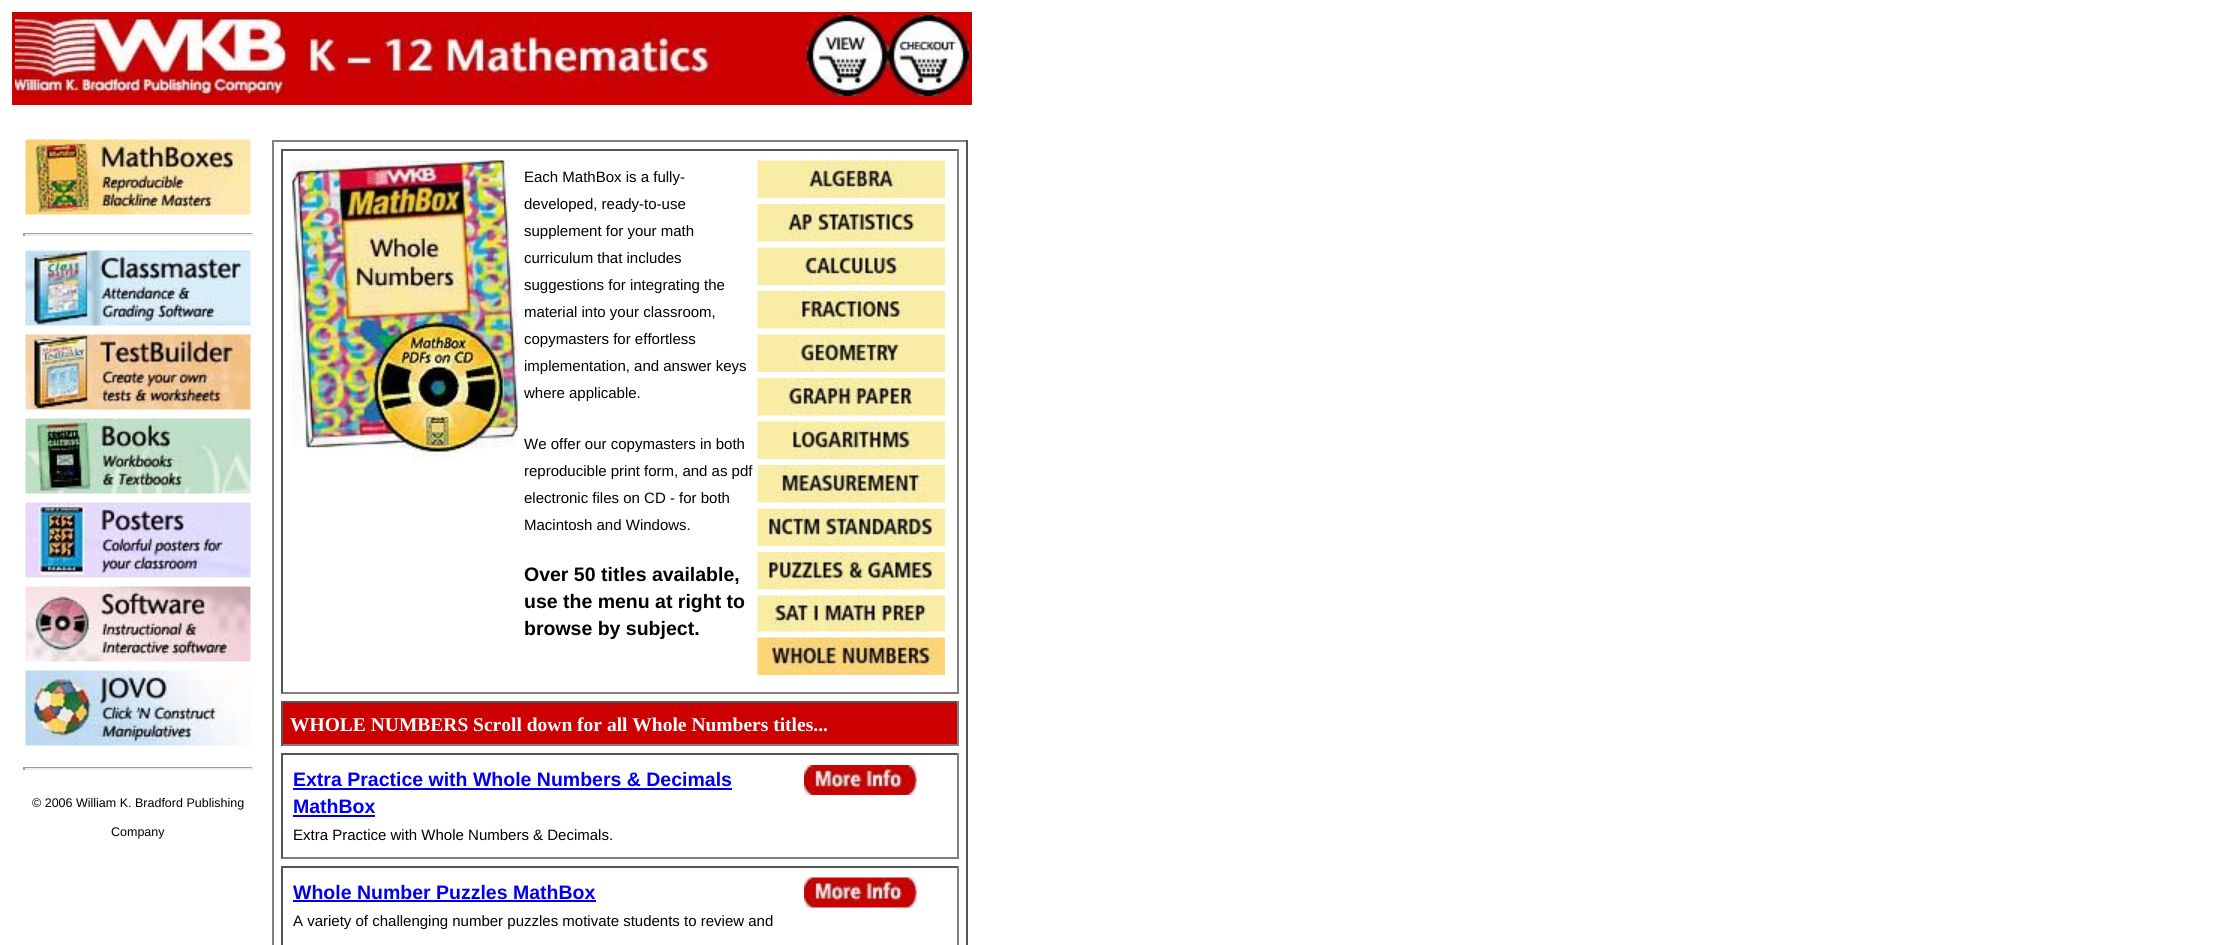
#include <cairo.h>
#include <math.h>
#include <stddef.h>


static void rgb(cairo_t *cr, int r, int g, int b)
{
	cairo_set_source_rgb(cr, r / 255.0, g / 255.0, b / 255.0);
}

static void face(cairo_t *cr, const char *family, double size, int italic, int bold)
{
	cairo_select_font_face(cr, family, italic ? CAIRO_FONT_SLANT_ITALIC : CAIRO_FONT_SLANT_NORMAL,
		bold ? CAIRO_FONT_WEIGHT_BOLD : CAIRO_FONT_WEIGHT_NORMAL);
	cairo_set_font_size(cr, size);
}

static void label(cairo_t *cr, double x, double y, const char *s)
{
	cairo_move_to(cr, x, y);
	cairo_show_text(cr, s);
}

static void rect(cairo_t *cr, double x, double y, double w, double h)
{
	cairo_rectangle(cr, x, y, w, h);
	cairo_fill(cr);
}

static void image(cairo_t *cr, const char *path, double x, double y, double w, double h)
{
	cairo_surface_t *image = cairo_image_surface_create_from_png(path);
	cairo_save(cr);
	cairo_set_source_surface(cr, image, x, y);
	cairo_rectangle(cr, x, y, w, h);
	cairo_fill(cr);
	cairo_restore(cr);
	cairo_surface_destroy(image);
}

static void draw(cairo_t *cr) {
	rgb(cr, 255, 255, 255);
	cairo_paint(cr);
	rgb(cr, 204, 0, 0);
	rect(cr, 12, 12, 960, 93);
	image(cr, "image0.png", 15, 18, 272, 77);
	image(cr, "image1.png", 286, 19, 434, 73);
	image(cr, "image2.png", 807, 15, 81, 81);
	image(cr, "image3.png", 888, 15, 81, 81);
	image(cr, "image4.png", 25, 139, 226, 76);
	rgb(cr, 159, 159, 159);
	rect(cr, 23, 233, 231, 1);
	rgb(cr, 238, 238, 238);
	rect(cr, 252, 233, 2, 3);
	rect(cr, 23, 234, 231, 2);
	rgb(cr, 159, 159, 159);
	rect(cr, 23, 233, 2, 3);
	image(cr, "image5.png", 25, 250, 226, 76);
	image(cr, "image6.png", 25, 334, 226, 76);
	image(cr, "image7.png", 25, 418, 226, 76);
	image(cr, "image8.png", 25, 502, 226, 76);
	image(cr, "image9.png", 25, 586, 226, 76);
	image(cr, "image10.png", 25, 670, 226, 76);
	rect(cr, 23, 767, 231, 1);
	rgb(cr, 238, 238, 238);
	rect(cr, 252, 767, 2, 3);
	rect(cr, 23, 768, 231, 2);
	rgb(cr, 159, 159, 159);
	rect(cr, 23, 767, 2, 3);
	face(cr, "Liberation Sans", 12.5, 0, 0);
	rgb(cr, 0, 0, 0);
	label(cr, 32, 807, "© 2006 William K. Bradford Publishing");
	label(cr, 111, 836, "Company");
	rgb(cr, 128, 128, 128);
	rect(cr, 272, 140, 696, 2);
	rgb(cr, 85, 85, 85);
	rect(cr, 966, 140, 2, 805);
	rgb(cr, 128, 128, 128);
	rect(cr, 272, 140, 2, 805);
	rgb(cr, 85, 85, 85);
	rect(cr, 281, 149, 678, 2);
	rgb(cr, 128, 128, 128);
	rect(cr, 957, 149, 2, 544);
	rect(cr, 281, 692, 678, 2);
	rgb(cr, 85, 85, 85);
	rect(cr, 281, 149, 2, 544);
	image(cr, "image11.png", 292, 160, 226, 301);
	face(cr, "Liberation Sans", 15, 0, 0);
	rgb(cr, 0, 0, 0);
	label(cr, 524, 182, "Each MathBox is a fully-");
	label(cr, 524, 209, "developed, ready-to-use");
	label(cr, 524, 236, "supplement for your math");
	label(cr, 524, 263, "curriculum that includes");
	label(cr, 524, 290, "suggestions for integrating the");
	label(cr, 524, 317, "material into your classroom,");
	label(cr, 524, 344, "copymasters for effortless");
	label(cr, 524, 371, "implementation, and answer keys");
	label(cr, 524, 398, "where applicable.");
	label(cr, 524, 449, "We offer our copymasters in both");
	label(cr, 524, 476, "reproducible print form, and as pdf");
	label(cr, 524, 503, "electronic files on CD - for both");
	label(cr, 524, 530, "Macintosh and Windows.");
	face(cr, "Liberation Sans", 19.5, 0, 1);
	label(cr, 524, 581, "Over 50 titles available,");
	label(cr, 524, 608, "use the menu at right to");
	label(cr, 524, 635, "browse by subject.");
	image(cr, "image12.png", 757, 160, 188, 38);
	image(cr, "image13.png", 757, 204, 188, 38);
	image(cr, "image14.png", 757, 247, 188, 38);
	image(cr, "image15.png", 757, 291, 188, 38);
	image(cr, "image16.png", 757, 334, 188, 38);
	image(cr, "image17.png", 757, 378, 188, 38);
	image(cr, "image18.png", 757, 421, 188, 38);
	image(cr, "image19.png", 757, 465, 188, 38);
	image(cr, "image20.png", 757, 508, 188, 38);
	image(cr, "image21.png", 757, 552, 188, 38);
	image(cr, "image22.png", 757, 595, 188, 37);
	image(cr, "image23.png", 757, 637, 188, 38);
	rgb(cr, 204, 0, 0);
	rect(cr, 283, 703, 674, 41);
	rgb(cr, 85, 85, 85);
	rect(cr, 281, 701, 678, 2);
	rgb(cr, 128, 128, 128);
	rect(cr, 957, 701, 2, 45);
	rect(cr, 281, 744, 678, 2);
	rgb(cr, 85, 85, 85);
	rect(cr, 281, 701, 2, 45);
	face(cr, "Liberation Serif", 19.5, 0, 1);
	rgb(cr, 255, 255, 255);
	label(cr, 290, 731, "WHOLE NUMBERS Scroll down for all Whole Numbers titles...");
	rgb(cr, 85, 85, 85);
	rect(cr, 281, 753, 678, 2);
	rgb(cr, 128, 128, 128);
	rect(cr, 957, 753, 2, 105);
	rect(cr, 281, 857, 678, 2);
	rgb(cr, 85, 85, 85);
	rect(cr, 281, 753, 2, 105);
	face(cr, "Liberation Sans", 19.5, 0, 1);
	rgb(cr, 0, 0, 238);
	label(cr, 293, 786, "Extra Practice with Whole Numbers & Decimals");
	rect(cr, 293, 788, 439, 2);
	label(cr, 293, 813, "MathBox");
	rect(cr, 293, 815, 82, 2);
	face(cr, "Liberation Sans", 15, 0, 0);
	rgb(cr, 0, 0, 0);
	label(cr, 293, 840, "Extra Practice with Whole Numbers & Decimals.");
	image(cr, "image24.png", 804, 765, 113, 30);
	rgb(cr, 85, 85, 85);
	rect(cr, 281, 866, 678, 2);
	rgb(cr, 128, 128, 128);
	rect(cr, 957, 866, 2, 79);
	rgb(cr, 85, 85, 85);
	rect(cr, 281, 866, 2, 79);
	face(cr, "Liberation Sans", 19.5, 0, 1);
	rgb(cr, 0, 0, 238);
	label(cr, 293, 899, "Whole Number Puzzles MathBox");
	rect(cr, 293, 900, 303, 2);
	face(cr, "Liberation Sans", 15, 0, 0);
	rgb(cr, 0, 0, 0);
	label(cr, 293, 926, "A variety of challenging number puzzles motivate students to review and");
	image(cr, "image25.png", 804, 877, 113, 31);
}

int main(void) {
	cairo_surface_t *surface = cairo_image_surface_create(CAIRO_FORMAT_RGB24, 2230, 945);
	cairo_t *cr = cairo_create(surface);
	cairo_font_options_t *options = cairo_font_options_create();
	cairo_font_options_set_hint_metrics(options, CAIRO_HINT_METRICS_OFF);
	cairo_font_options_set_hint_style(options, CAIRO_HINT_STYLE_NONE);
	cairo_set_font_options(cr, options);
	cairo_set_miter_limit(cr, 4);
	draw(cr);
	cairo_surface_write_to_png(surface, "render.png");
	cairo_font_options_destroy(options);
	cairo_destroy(cr);
	cairo_surface_destroy(surface);
	return 0;
}
